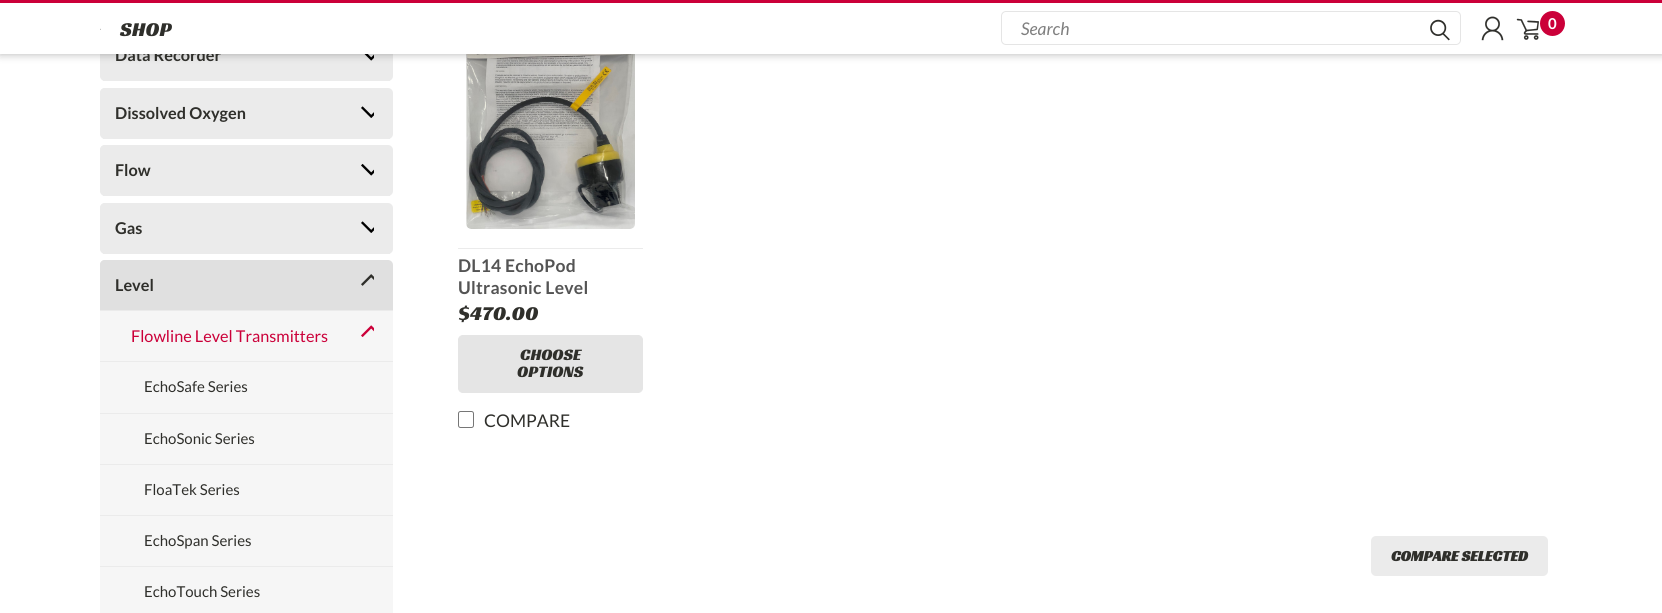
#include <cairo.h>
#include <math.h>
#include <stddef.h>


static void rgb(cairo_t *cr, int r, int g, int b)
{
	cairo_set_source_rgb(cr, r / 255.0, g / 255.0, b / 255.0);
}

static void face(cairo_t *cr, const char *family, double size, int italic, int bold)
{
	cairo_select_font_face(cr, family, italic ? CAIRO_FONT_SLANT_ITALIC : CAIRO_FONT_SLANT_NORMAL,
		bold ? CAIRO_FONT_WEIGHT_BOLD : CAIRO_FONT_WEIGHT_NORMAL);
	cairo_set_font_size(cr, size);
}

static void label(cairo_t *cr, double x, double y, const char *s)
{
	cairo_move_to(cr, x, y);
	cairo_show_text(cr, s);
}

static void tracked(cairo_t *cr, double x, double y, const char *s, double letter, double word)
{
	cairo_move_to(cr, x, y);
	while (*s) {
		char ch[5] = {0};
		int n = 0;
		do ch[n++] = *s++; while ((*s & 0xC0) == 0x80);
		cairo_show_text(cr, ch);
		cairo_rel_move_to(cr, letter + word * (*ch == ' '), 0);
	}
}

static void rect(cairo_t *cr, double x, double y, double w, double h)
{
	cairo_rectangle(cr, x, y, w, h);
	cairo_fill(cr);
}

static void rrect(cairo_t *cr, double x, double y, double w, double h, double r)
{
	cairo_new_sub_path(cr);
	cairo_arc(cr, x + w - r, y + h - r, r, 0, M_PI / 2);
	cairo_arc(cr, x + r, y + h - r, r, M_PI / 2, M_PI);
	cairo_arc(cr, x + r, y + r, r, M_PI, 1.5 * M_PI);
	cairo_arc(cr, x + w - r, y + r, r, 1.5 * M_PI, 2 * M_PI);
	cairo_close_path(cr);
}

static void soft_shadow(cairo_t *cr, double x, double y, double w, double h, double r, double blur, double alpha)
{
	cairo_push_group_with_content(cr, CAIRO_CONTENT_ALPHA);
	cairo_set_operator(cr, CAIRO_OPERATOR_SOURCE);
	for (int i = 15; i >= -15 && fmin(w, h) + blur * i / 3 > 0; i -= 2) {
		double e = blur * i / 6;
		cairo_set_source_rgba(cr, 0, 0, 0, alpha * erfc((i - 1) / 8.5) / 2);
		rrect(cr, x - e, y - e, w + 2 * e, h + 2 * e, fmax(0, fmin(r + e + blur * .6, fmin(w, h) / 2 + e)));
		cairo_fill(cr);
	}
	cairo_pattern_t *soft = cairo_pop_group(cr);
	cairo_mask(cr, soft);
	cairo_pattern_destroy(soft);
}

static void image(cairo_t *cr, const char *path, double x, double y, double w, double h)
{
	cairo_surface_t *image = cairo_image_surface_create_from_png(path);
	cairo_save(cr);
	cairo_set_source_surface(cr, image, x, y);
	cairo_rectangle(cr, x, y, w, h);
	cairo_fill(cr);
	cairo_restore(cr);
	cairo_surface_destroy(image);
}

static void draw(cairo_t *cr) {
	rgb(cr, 255, 255, 255);
	cairo_paint(cr);
	rgb(cr, 235, 235, 235);
	rrect(cr, 100, 30, 293, 51, 5);
	cairo_fill(cr);
	rrect(cr, 100, 30, 249, 50, 5);
	cairo_fill(cr);
	image(cr, "image4.png", 364, 54, 10, 7);
	image(cr, "image9.png", 466, 54, 169, 175);
	rgb(cr, 0, 0, 0);
	soft_shadow(cr, 0, 0, 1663, 54, 0, 4.5, 0.3);
	face(cr, "Lato", 16.25, 0, 1);
	rgb(cr, 47, 47, 43);
	label(cr, 115, 61, "Data Recorder");
	rgb(cr, 255, 255, 255);
	rect(cr, 0, 3, 1662, 51);
	rgb(cr, 203, 0, 57);
	rect(cr, 0, 0, 1662, 3);
	image(cr, "image0.png", 100, 28, 1, 2);
	face(cr, "Racing Sans One", 20, 0, 0);
	rgb(cr, 47, 47, 43);
	tracked(cr, 120, 36, "SHOP", 0.25, 0);
	rrect(cr, 1001.5, 11.5, 459, 33, 4.5);
	rgb(cr, 229, 229, 229);
	cairo_set_line_width(cr, 1);
	cairo_stroke(cr);
	face(cr, "Lato", 17.5, 1, 0);
	rgb(cr, 127, 127, 127);
	label(cr, 1021, 35, "Search");
	image(cr, "image1.png", 1430, 19, 20, 22);
	image(cr, "image2.png", 1481, 16, 23, 25);
	image(cr, "image3.png", 1516, 18, 23, 22);
	rgb(cr, 203, 0, 57);
	cairo_arc(cr, 1552.5, 23.5, 12.5, 0, 2 * M_PI);
	cairo_fill(cr);
	face(cr, "Lato", 15, 0, 1);
	rgb(cr, 255, 255, 255);
	label(cr, 1548, 29, "0");
	rgb(cr, 235, 235, 235);
	rect(cr, 103, 80, 287, 1);
	rrect(cr, 100, 88, 293, 51, 5);
	cairo_fill(cr);
	rect(cr, 103, 138, 287, 1);
	rrect(cr, 100, 88, 249, 50, 5);
	cairo_fill(cr);
	face(cr, "Lato", 16.25, 0, 1);
	rgb(cr, 47, 47, 43);
	label(cr, 115, 119, "Dissolved Oxygen");
	image(cr, "image5.png", 361, 106, 13, 12);
	rgb(cr, 235, 235, 235);
	rrect(cr, 100, 145, 293, 51, 5);
	cairo_fill(cr);
	rect(cr, 103, 195, 287, 1);
	rrect(cr, 100, 145, 249, 50, 5);
	cairo_fill(cr);
	rgb(cr, 47, 47, 43);
	label(cr, 115, 176, "Flow");
	image(cr, "image6.png", 361, 163, 13, 13);
	rgb(cr, 235, 235, 235);
	rrect(cr, 100, 203, 293, 51, 5);
	cairo_fill(cr);
	rect(cr, 103, 253, 287, 1);
	rrect(cr, 100, 203, 249, 50, 5);
	cairo_fill(cr);
	rgb(cr, 47, 47, 43);
	label(cr, 115, 234, "Gas");
	image(cr, "image5.png", 361, 221, 13, 12);
	rgb(cr, 224, 224, 224);
	rrect(cr, 100, 260, 293, 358, 5);
	cairo_fill(cr);
	rrect(cr, 100, 260, 249, 50, 5);
	cairo_fill(cr);
	rgb(cr, 47, 47, 43);
	label(cr, 115, 291, "Level");
	image(cr, "image7.png", 361, 274, 13, 12);
	rgb(cr, 235, 235, 235);
	rect(cr, 100, 310, 293, 1);
	rgb(cr, 246, 246, 246);
	rect(cr, 100, 311, 293, 302);
	face(cr, "Lato", 16.25, 0, 0);
	rgb(cr, 203, 0, 57);
	label(cr, 131, 342, "Flowline Level Transmitters");
	image(cr, "image8.png", 361, 325, 13, 12);
	rgb(cr, 235, 235, 235);
	rect(cr, 100, 361, 293, 1);
	rect(cr, 100, 413, 293, 1);
	face(cr, "Lato", 15, 0, 0);
	rgb(cr, 47, 47, 43);
	label(cr, 144, 392, "EchoSafe Series");
	rgb(cr, 235, 235, 235);
	rect(cr, 100, 464, 293, 1);
	rgb(cr, 47, 47, 43);
	label(cr, 144, 444, "EchoSonic Series");
	rgb(cr, 235, 235, 235);
	rect(cr, 100, 515, 293, 1);
	rgb(cr, 47, 47, 43);
	label(cr, 144, 495, "FloaTek Series");
	rgb(cr, 235, 235, 235);
	rect(cr, 100, 566, 293, 1);
	rgb(cr, 47, 47, 43);
	label(cr, 144, 546, "EchoSpan Series");
	label(cr, 144, 597, "EchoTouch Series");
	rgb(cr, 235, 235, 235);
	rect(cr, 458, 248, 185, 1);
	face(cr, "Lato", 17.5, 0, 1);
	rgb(cr, 84, 84, 84);
	tracked(cr, 458, 272, "DL14 EchoPod", 0.25, 0);
	tracked(cr, 458, 294, "Ultrasonic Level", 0.25, 0);
	face(cr, "Racing Sans One", 20, 0, 0);
	rgb(cr, 47, 47, 43);
	label(cr, 458, 320, "$470.00");
	rgb(cr, 229, 229, 229);
	rrect(cr, 458.5, 335.5, 184, 57, 4.5);
	cairo_fill_preserve(cr);
	cairo_stroke(cr);
	face(cr, "Racing Sans One", 16.25, 0, 0);
	rgb(cr, 47, 47, 43);
	label(cr, 520, 360, "CHOOSE");
	label(cr, 517, 377, "OPTIONS");
	rrect(cr, 458.5, 411.5, 15, 16, 2);
	rgb(cr, 118, 118, 118);
	cairo_stroke(cr);
	face(cr, "Lato", 17.5, 0, 0);
	rgb(cr, 47, 47, 43);
	label(cr, 484, 427, "COMPARE");
	rgb(cr, 235, 235, 235);
	rrect(cr, 1371, 536, 177, 40, 5);
	cairo_fill(cr);
	face(cr, "Racing Sans One", 15, 0, 1);
	rgb(cr, 47, 47, 43);
	label(cr, 1391, 561, "COMPARE SELECTED");
}

int main(void) {
	cairo_surface_t *surface = cairo_image_surface_create(CAIRO_FORMAT_RGB24, 1662, 613);
	cairo_t *cr = cairo_create(surface);
	cairo_font_options_t *options = cairo_font_options_create();
	cairo_font_options_set_hint_metrics(options, CAIRO_HINT_METRICS_OFF);
	cairo_font_options_set_hint_style(options, CAIRO_HINT_STYLE_NONE);
	cairo_set_font_options(cr, options);
	cairo_set_miter_limit(cr, 4);
	draw(cr);
	cairo_surface_write_to_png(surface, "render.png");
	cairo_font_options_destroy(options);
	cairo_destroy(cr);
	cairo_surface_destroy(surface);
	return 0;
}
